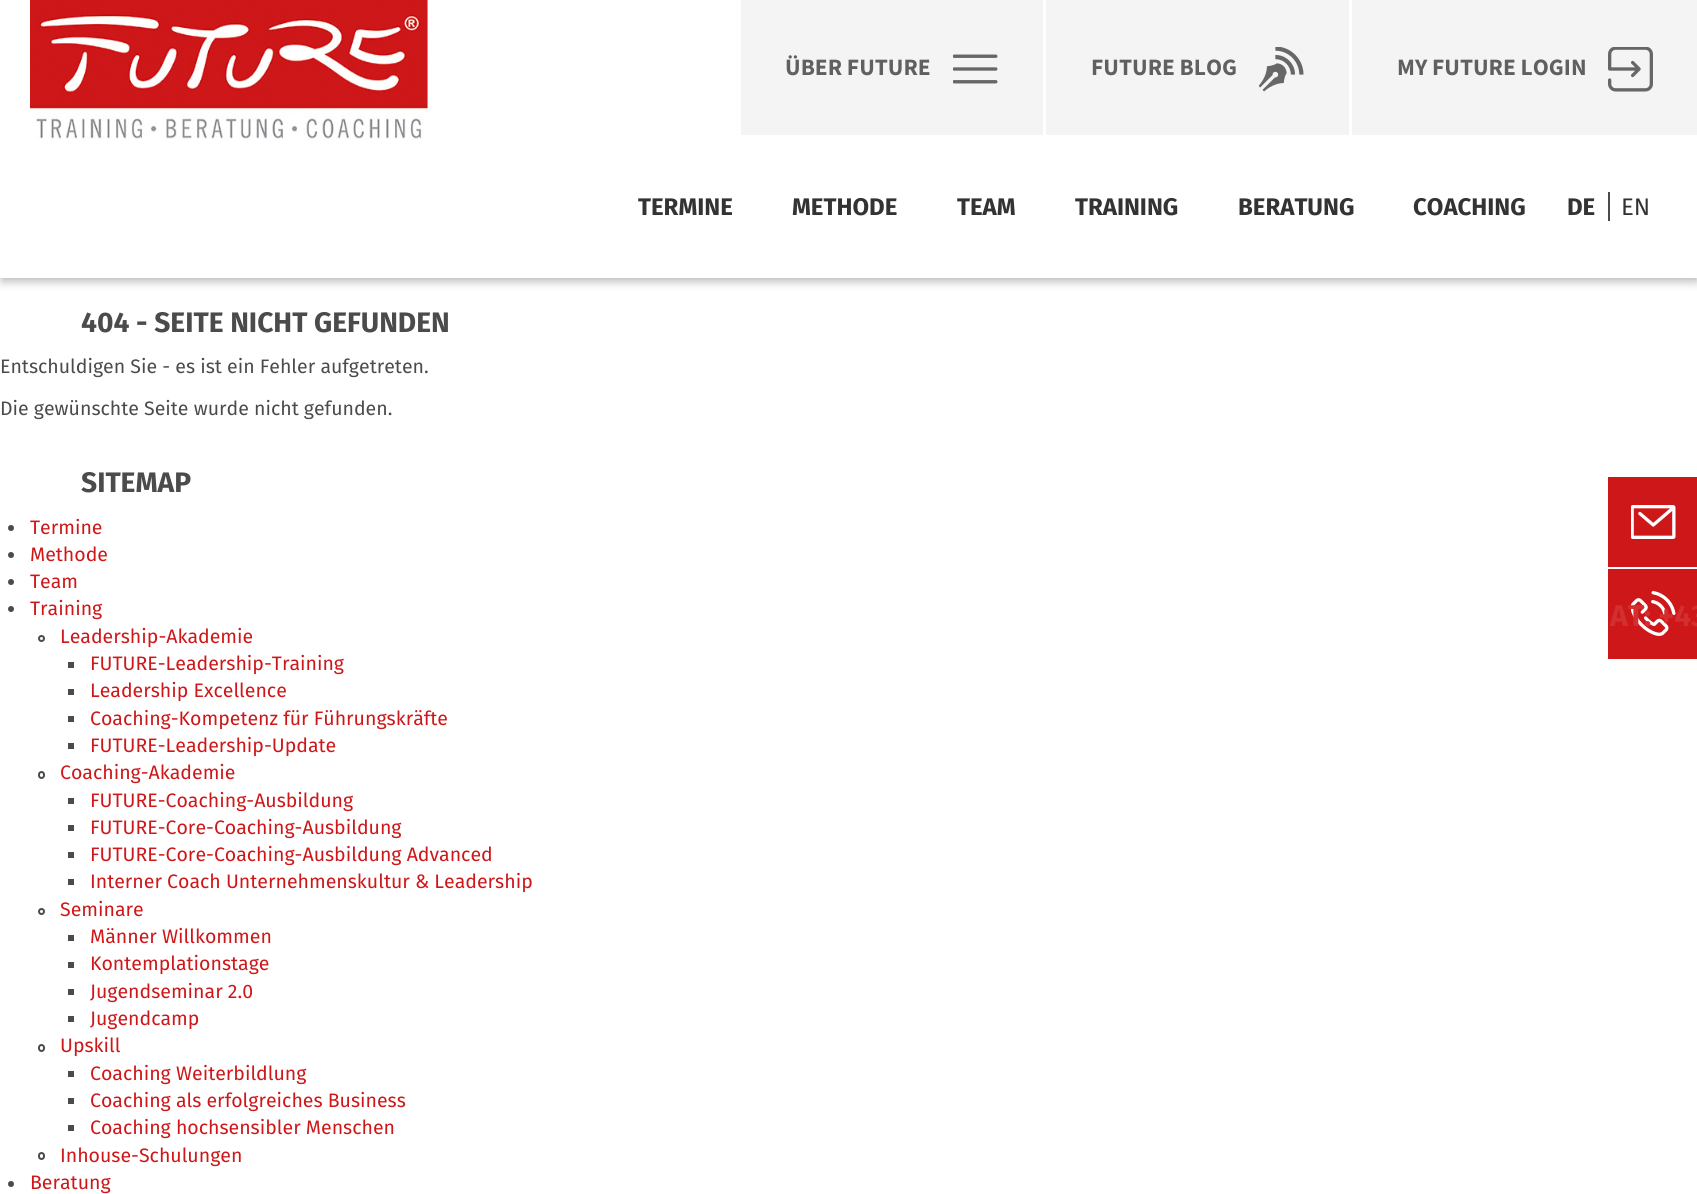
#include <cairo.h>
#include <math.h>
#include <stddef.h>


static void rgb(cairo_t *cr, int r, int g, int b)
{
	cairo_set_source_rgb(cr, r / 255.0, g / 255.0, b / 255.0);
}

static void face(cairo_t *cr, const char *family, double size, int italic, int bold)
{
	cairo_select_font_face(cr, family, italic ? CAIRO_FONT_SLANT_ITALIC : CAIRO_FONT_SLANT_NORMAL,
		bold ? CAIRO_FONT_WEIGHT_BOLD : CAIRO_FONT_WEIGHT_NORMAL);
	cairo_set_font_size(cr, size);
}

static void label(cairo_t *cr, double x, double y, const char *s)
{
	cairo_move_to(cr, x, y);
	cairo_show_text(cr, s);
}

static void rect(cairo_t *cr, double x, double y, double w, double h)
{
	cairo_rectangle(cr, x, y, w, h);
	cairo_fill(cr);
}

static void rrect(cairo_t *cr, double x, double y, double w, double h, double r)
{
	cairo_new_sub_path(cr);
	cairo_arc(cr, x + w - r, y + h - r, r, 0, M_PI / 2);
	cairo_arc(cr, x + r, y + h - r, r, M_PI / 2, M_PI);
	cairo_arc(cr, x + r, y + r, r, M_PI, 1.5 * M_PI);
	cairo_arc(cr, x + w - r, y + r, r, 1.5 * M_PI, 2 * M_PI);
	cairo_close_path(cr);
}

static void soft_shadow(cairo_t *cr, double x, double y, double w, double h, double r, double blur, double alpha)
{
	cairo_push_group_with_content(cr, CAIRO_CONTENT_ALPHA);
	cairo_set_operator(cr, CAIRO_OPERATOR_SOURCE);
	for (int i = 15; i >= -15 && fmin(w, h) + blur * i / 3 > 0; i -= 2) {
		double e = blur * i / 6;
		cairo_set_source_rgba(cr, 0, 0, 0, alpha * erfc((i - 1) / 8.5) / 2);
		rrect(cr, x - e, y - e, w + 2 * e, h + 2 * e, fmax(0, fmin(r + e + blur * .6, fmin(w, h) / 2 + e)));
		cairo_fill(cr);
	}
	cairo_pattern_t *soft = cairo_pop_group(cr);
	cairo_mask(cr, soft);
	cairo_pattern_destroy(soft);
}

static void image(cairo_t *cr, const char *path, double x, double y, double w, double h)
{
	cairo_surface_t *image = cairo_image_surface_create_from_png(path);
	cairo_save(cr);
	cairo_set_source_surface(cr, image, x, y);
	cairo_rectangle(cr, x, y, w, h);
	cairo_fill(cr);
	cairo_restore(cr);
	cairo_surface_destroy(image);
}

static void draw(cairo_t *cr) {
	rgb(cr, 255, 255, 255);
	cairo_paint(cr);
	rgb(cr, 0, 0, 0);
	soft_shadow(cr, 2, 6, 1695, 275, 0, 5, 0.3);
	rgb(cr, 255, 255, 255);
	rect(cr, 0, 0, 1697, 278);
	rgb(cr, 244, 244, 244);
	rect(cr, 741, 0, 302, 135);
	face(cr, "Source Sans Pro", 23.5, 0, 1);
	rgb(cr, 96, 96, 96);
	label(cr, 785, 75, "ÜBER FUTURE");
	image(cr, "image0.png", 953, 54, 45, 30);
	rgb(cr, 244, 244, 244);
	rect(cr, 1046, 0, 303, 135);
	rgb(cr, 96, 96, 96);
	label(cr, 1091, 75, "FUTURE BLOG");
	image(cr, "image1.png", 1259, 47, 45, 45);
	rgb(cr, 244, 244, 244);
	rect(cr, 1352, 0, 345, 135);
	rgb(cr, 96, 96, 96);
	label(cr, 1397, 75, "MY FUTURE LOGIN");
	image(cr, "image2.png", 1608, 47, 45, 45);
	image(cr, "image3.png", 30, 0, 398, 140);
	face(cr, "Fira Sans", 24, 0, 1);
	rgb(cr, 51, 51, 51);
	label(cr, 638, 215, "TERMINE");
	label(cr, 792, 215, "METHODE");
	label(cr, 957, 215, "TEAM");
	label(cr, 1075, 215, "TRAINING");
	label(cr, 1238, 215, "BERATUNG");
	label(cr, 1413, 215, "COACHING");
	label(cr, 1567, 215, "DE");
	face(cr, "Fira Sans", 24, 0, 0);
	label(cr, 1621, 215, "EN");
	rgb(cr, 75, 75, 75);
	rect(cr, 1608, 192, 2, 29);
	face(cr, "Fira Sans", 28.2, 0, 1);
	label(cr, 81, 332, "404 - SEITE NICHT GEFUNDEN");
	face(cr, "Fira Sans", 19.5, 0, 0);
	label(cr, 0, 373, "Entschuldigen Sie - es ist ein Fehler aufgetreten.");
	label(cr, 0, 415, "Die gewünschte Seite wurde nicht gefunden.");
	face(cr, "Fira Sans", 28.2, 0, 1);
	label(cr, 81, 492, "SITEMAP");
	cairo_new_path(cr);
	cairo_arc(cr, 11, 528, 3, 0, 2 * M_PI);
	cairo_fill(cr);
	face(cr, "Fira Sans", 19.5, 0, 0);
	rgb(cr, 206, 23, 25);
	label(cr, 30, 534, "Termine");
	rgb(cr, 75, 75, 75);
	cairo_new_path(cr);
	cairo_arc(cr, 11, 555, 3, 0, 2 * M_PI);
	cairo_fill(cr);
	rgb(cr, 206, 23, 25);
	label(cr, 30, 561, "Methode");
	rgb(cr, 75, 75, 75);
	cairo_new_path(cr);
	cairo_arc(cr, 11, 582, 3, 0, 2 * M_PI);
	cairo_fill(cr);
	rgb(cr, 206, 23, 25);
	label(cr, 30, 588, "Team");
	rgb(cr, 75, 75, 75);
	cairo_new_path(cr);
	cairo_arc(cr, 11, 609, 3, 0, 2 * M_PI);
	cairo_fill(cr);
	rgb(cr, 206, 23, 25);
	label(cr, 30, 615, "Training");
	cairo_new_path(cr);
	cairo_arc(cr, 41.5, 638.5, 2.5, 0, 2 * M_PI);
	rgb(cr, 75, 75, 75);
	cairo_stroke(cr);
	rgb(cr, 206, 23, 25);
	label(cr, 60, 643, "Leadership-Akademie");
	rgb(cr, 75, 75, 75);
	rect(cr, 68, 662, 6, 6);
	rgb(cr, 206, 23, 25);
	label(cr, 90, 670, "FUTURE-Leadership-Training");
	rgb(cr, 75, 75, 75);
	rect(cr, 68, 689, 6, 6);
	rgb(cr, 206, 23, 25);
	label(cr, 90, 697, "Leadership Excellence");
	rgb(cr, 75, 75, 75);
	rect(cr, 68, 716, 6, 6);
	rgb(cr, 206, 23, 25);
	label(cr, 90, 725, "Coaching-Kompetenz für Führungskräfte");
	rgb(cr, 75, 75, 75);
	rect(cr, 68, 743, 6, 6);
	rgb(cr, 206, 23, 25);
	label(cr, 90, 752, "FUTURE-Leadership-Update");
	rrect(cr, 39, 772, 5, 6, 2.5);
	rgb(cr, 75, 75, 75);
	cairo_stroke(cr);
	rgb(cr, 206, 23, 25);
	label(cr, 60, 779, "Coaching-Akademie");
	rgb(cr, 75, 75, 75);
	rect(cr, 68, 798, 6, 6);
	rgb(cr, 206, 23, 25);
	label(cr, 90, 807, "FUTURE-Coaching-Ausbildung");
	rgb(cr, 75, 75, 75);
	rect(cr, 68, 825, 6, 6);
	rgb(cr, 206, 23, 25);
	label(cr, 90, 834, "FUTURE-Core-Coaching-Ausbildung");
	rgb(cr, 75, 75, 75);
	rect(cr, 68, 852, 6, 6);
	rgb(cr, 206, 23, 25);
	label(cr, 90, 861, "FUTURE-Core-Coaching-Ausbildung Advanced");
	rgb(cr, 75, 75, 75);
	rect(cr, 68, 879, 6, 6);
	rgb(cr, 206, 23, 25);
	label(cr, 90, 888, "Interner Coach Unternehmenskultur & Leadership");
	cairo_new_path(cr);
	cairo_arc(cr, 41.5, 911.5, 2.5, 0, 2 * M_PI);
	rgb(cr, 75, 75, 75);
	cairo_stroke(cr);
	rgb(cr, 206, 23, 25);
	label(cr, 60, 916, "Seminare");
	rgb(cr, 75, 75, 75);
	rect(cr, 68, 935, 6, 6);
	rgb(cr, 206, 23, 25);
	label(cr, 90, 943, "Männer Willkommen");
	rgb(cr, 75, 75, 75);
	rect(cr, 68, 962, 6, 6);
	rgb(cr, 206, 23, 25);
	label(cr, 90, 970, "Kontemplationstage");
	rgb(cr, 75, 75, 75);
	rect(cr, 68, 989, 6, 6);
	rgb(cr, 206, 23, 25);
	label(cr, 90, 998, "Jugendseminar 2.0");
	rgb(cr, 75, 75, 75);
	rect(cr, 68, 1016, 6, 6);
	rgb(cr, 206, 23, 25);
	label(cr, 90, 1025, "Jugendcamp");
	rrect(cr, 39, 1045, 5, 6, 2.5);
	rgb(cr, 75, 75, 75);
	cairo_stroke(cr);
	rgb(cr, 206, 23, 25);
	label(cr, 60, 1052, "Upskill");
	rgb(cr, 75, 75, 75);
	rect(cr, 68, 1071, 6, 6);
	rgb(cr, 206, 23, 25);
	label(cr, 90, 1080, "Coaching Weiterbildlung");
	rgb(cr, 75, 75, 75);
	rect(cr, 68, 1098, 6, 6);
	rgb(cr, 206, 23, 25);
	label(cr, 90, 1107, "Coaching als erfolgreiches Business");
	rgb(cr, 75, 75, 75);
	rect(cr, 68, 1125, 6, 6);
	rgb(cr, 206, 23, 25);
	label(cr, 90, 1134, "Coaching hochsensibler Menschen");
	rrect(cr, 39, 1153, 5, 6, 2.5);
	rgb(cr, 75, 75, 75);
	cairo_stroke(cr);
	rgb(cr, 206, 23, 25);
	label(cr, 60, 1162, "Inhouse-Schulungen");
	rgb(cr, 75, 75, 75);
	cairo_new_path(cr);
	cairo_arc(cr, 11, 1184, 3, 0, 2 * M_PI);
	cairo_fill(cr);
	rgb(cr, 206, 23, 25);
	label(cr, 30, 1189, "Beratung");
	rect(cr, 1608, 477, 89, 90);
	image(cr, "image4.png", 1631, 505, 45, 34);
	rect(cr, 1608, 569, 89, 90);
	image(cr, "image5.png", 1631, 591, 45, 45);
	face(cr, "Fira Sans", 30, 0, 1);
	rgb(cr, 211, 46, 48);
	label(cr, 1610, 626, "AT: +43");
}

int main(void) {
	cairo_surface_t *surface = cairo_image_surface_create(CAIRO_FORMAT_RGB24, 1697, 1194);
	cairo_t *cr = cairo_create(surface);
	cairo_font_options_t *options = cairo_font_options_create();
	cairo_font_options_set_hint_metrics(options, CAIRO_HINT_METRICS_OFF);
	cairo_font_options_set_hint_style(options, CAIRO_HINT_STYLE_NONE);
	cairo_set_font_options(cr, options);
	cairo_set_miter_limit(cr, 4);
	draw(cr);
	cairo_surface_write_to_png(surface, "render.png");
	cairo_font_options_destroy(options);
	cairo_destroy(cr);
	cairo_surface_destroy(surface);
	return 0;
}
